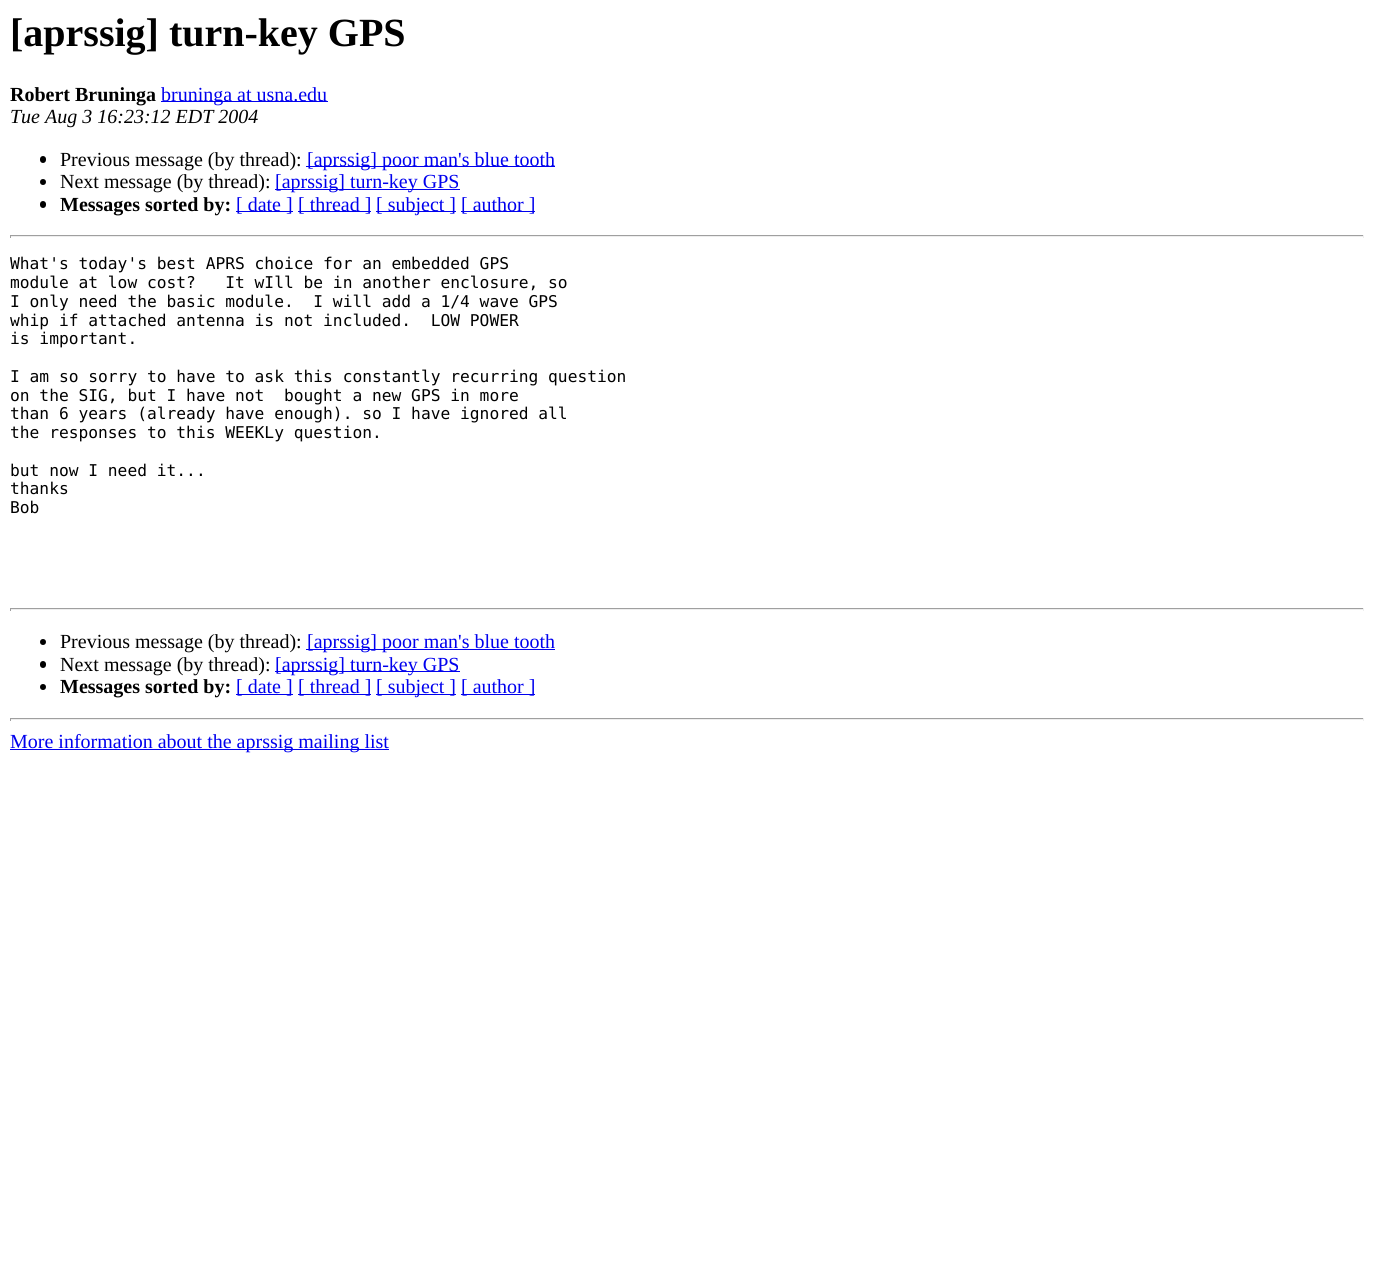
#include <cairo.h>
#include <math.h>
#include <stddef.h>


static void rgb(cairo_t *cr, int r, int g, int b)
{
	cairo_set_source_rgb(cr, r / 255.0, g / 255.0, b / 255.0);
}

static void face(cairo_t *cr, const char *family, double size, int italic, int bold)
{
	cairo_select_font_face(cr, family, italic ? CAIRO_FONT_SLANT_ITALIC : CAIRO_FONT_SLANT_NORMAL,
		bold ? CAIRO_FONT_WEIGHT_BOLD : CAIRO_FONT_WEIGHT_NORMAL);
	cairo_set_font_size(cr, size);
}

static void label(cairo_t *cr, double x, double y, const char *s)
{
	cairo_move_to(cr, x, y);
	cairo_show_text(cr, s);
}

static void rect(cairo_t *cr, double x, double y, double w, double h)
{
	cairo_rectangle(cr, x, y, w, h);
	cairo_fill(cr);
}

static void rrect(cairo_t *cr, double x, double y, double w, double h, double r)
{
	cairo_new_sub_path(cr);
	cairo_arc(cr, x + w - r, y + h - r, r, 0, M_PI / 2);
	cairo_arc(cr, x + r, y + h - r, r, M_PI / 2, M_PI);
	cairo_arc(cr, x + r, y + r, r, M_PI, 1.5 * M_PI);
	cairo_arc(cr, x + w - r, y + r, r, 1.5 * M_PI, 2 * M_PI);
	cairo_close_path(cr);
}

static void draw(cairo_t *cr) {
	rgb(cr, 255, 255, 255);
	cairo_paint(cr);
	face(cr, "Liberation Serif", 40, 0, 1);
	rgb(cr, 0, 0, 0);
	label(cr, 10, 46, "[aprssig] turn-key GPS");
	face(cr, "Liberation Serif", 20, 0, 1);
	label(cr, 10, 101, "Robert Bruninga");
	rgb(cr, 0, 0, 238);
	rect(cr, 161, 101, 167, 1);
	face(cr, "Liberation Serif", 20, 0, 0);
	label(cr, 161, 101, "bruninga at usna.edu");
	face(cr, "Liberation Serif", 20, 1, 0);
	rgb(cr, 0, 0, 0);
	label(cr, 10, 123, "Tue Aug 3 16:23:12 EDT 2004");
	rrect(cr, 40, 156, 6, 7, 3);
	cairo_fill(cr);
	face(cr, "Liberation Serif", 20, 0, 0);
	label(cr, 60, 166, "Previous message (by thread):");
	rgb(cr, 0, 0, 238);
	rect(cr, 306, 166, 249, 1);
	label(cr, 307, 166, "[aprssig] poor man's blue tooth");
	rgb(cr, 0, 0, 0);
	cairo_new_path(cr);
	cairo_arc(cr, 43, 182, 3, 0, 2 * M_PI);
	cairo_fill(cr);
	label(cr, 60, 188, "Next message (by thread):");
	rgb(cr, 0, 0, 238);
	rect(cr, 275, 189, 185, 1);
	label(cr, 275, 188, "[aprssig] turn-key GPS");
	rgb(cr, 0, 0, 0);
	rrect(cr, 40, 201, 6, 7, 3);
	cairo_fill(cr);
	face(cr, "Liberation Serif", 20, 0, 1);
	label(cr, 60, 211, "Messages sorted by:");
	rgb(cr, 0, 0, 238);
	rect(cr, 236, 211, 57, 1);
	face(cr, "Liberation Serif", 20, 0, 0);
	label(cr, 236, 211, "[ date ]");
	rect(cr, 298, 211, 73, 1);
	label(cr, 298, 211, "[ thread ]");
	rect(cr, 376, 211, 80, 1);
	label(cr, 376, 211, "[ subject ]");
	rect(cr, 461, 211, 74, 1);
	label(cr, 461, 211, "[ author ]");
	rgb(cr, 159, 159, 159);
	rect(cr, 10, 235, 1354, 1);
	rgb(cr, 238, 238, 238);
	rect(cr, 1363, 235, 1, 3);
	rect(cr, 10, 236, 1354, 1);
	rgb(cr, 159, 159, 159);
	rect(cr, 10, 235, 1, 3);
	face(cr, "DejaVu Sans Mono", 16.25, 0, 0);
	rgb(cr, 0, 0, 0);
	label(cr, 10, 269, "What's today's best APRS choice for an embedded GPS");
	label(cr, 10, 288, "module at low cost?   It wIll be in another enclosure, so");
	label(cr, 10, 307, "I only need the basic module.  I will add a 1/4 wave GPS");
	label(cr, 10, 326, "whip if attached antenna is not included.  LOW POWER");
	label(cr, 10, 344, "is important.");
	label(cr, 10, 382, "I am so sorry to have to ask this constantly recurring question");
	label(cr, 10, 401, "on the SIG, but I have not  bought a new GPS in more");
	label(cr, 10, 419, "than 6 years (already have enough). so I have ignored all");
	label(cr, 10, 438, "the responses to this WEEKLy question.");
	label(cr, 10, 476, "but now I need it...");
	label(cr, 10, 494, "thanks");
	label(cr, 10, 513, "Bob");
	rgb(cr, 159, 159, 159);
	rect(cr, 10, 608, 1354, 1);
	rgb(cr, 238, 238, 238);
	rect(cr, 1363, 608, 1, 3);
	rect(cr, 10, 609, 1354, 1);
	rgb(cr, 159, 159, 159);
	rect(cr, 10, 608, 1, 3);
	rgb(cr, 0, 0, 0);
	cairo_new_path(cr);
	cairo_arc(cr, 43, 642, 3, 0, 2 * M_PI);
	cairo_fill(cr);
	face(cr, "Liberation Serif", 20, 0, 0);
	label(cr, 60, 648, "Previous message (by thread):");
	rgb(cr, 0, 0, 238);
	rect(cr, 306, 649, 249, 1);
	label(cr, 307, 648, "[aprssig] poor man's blue tooth");
	rgb(cr, 0, 0, 0);
	rrect(cr, 40, 661, 6, 7, 3);
	cairo_fill(cr);
	label(cr, 60, 671, "Next message (by thread):");
	rgb(cr, 0, 0, 238);
	rect(cr, 275, 671, 185, 1);
	label(cr, 275, 671, "[aprssig] turn-key GPS");
	rgb(cr, 0, 0, 0);
	cairo_new_path(cr);
	cairo_arc(cr, 43, 687, 3, 0, 2 * M_PI);
	cairo_fill(cr);
	face(cr, "Liberation Serif", 20, 0, 1);
	label(cr, 60, 693, "Messages sorted by:");
	rgb(cr, 0, 0, 238);
	rect(cr, 236, 694, 57, 1);
	face(cr, "Liberation Serif", 20, 0, 0);
	label(cr, 236, 693, "[ date ]");
	rect(cr, 298, 694, 73, 1);
	label(cr, 298, 693, "[ thread ]");
	rect(cr, 376, 694, 80, 1);
	label(cr, 376, 693, "[ subject ]");
	rect(cr, 461, 694, 74, 1);
	label(cr, 461, 693, "[ author ]");
	rgb(cr, 159, 159, 159);
	rect(cr, 10, 718, 1354, 1);
	rgb(cr, 238, 238, 238);
	rect(cr, 1363, 718, 1, 3);
	rect(cr, 10, 719, 1354, 1);
	rgb(cr, 159, 159, 159);
	rect(cr, 10, 718, 1, 3);
	rgb(cr, 0, 0, 238);
	rect(cr, 10, 749, 379, 1);
	label(cr, 10, 748, "More information about the aprssig mailing list");
}

int main(void) {
	cairo_surface_t *surface = cairo_image_surface_create(CAIRO_FORMAT_RGB24, 1373, 1270);
	cairo_t *cr = cairo_create(surface);
	cairo_font_options_t *options = cairo_font_options_create();
	cairo_font_options_set_hint_metrics(options, CAIRO_HINT_METRICS_OFF);
	cairo_font_options_set_hint_style(options, CAIRO_HINT_STYLE_NONE);
	cairo_set_font_options(cr, options);
	cairo_set_miter_limit(cr, 4);
	draw(cr);
	cairo_surface_write_to_png(surface, "render.png");
	cairo_font_options_destroy(options);
	cairo_destroy(cr);
	cairo_surface_destroy(surface);
	return 0;
}
